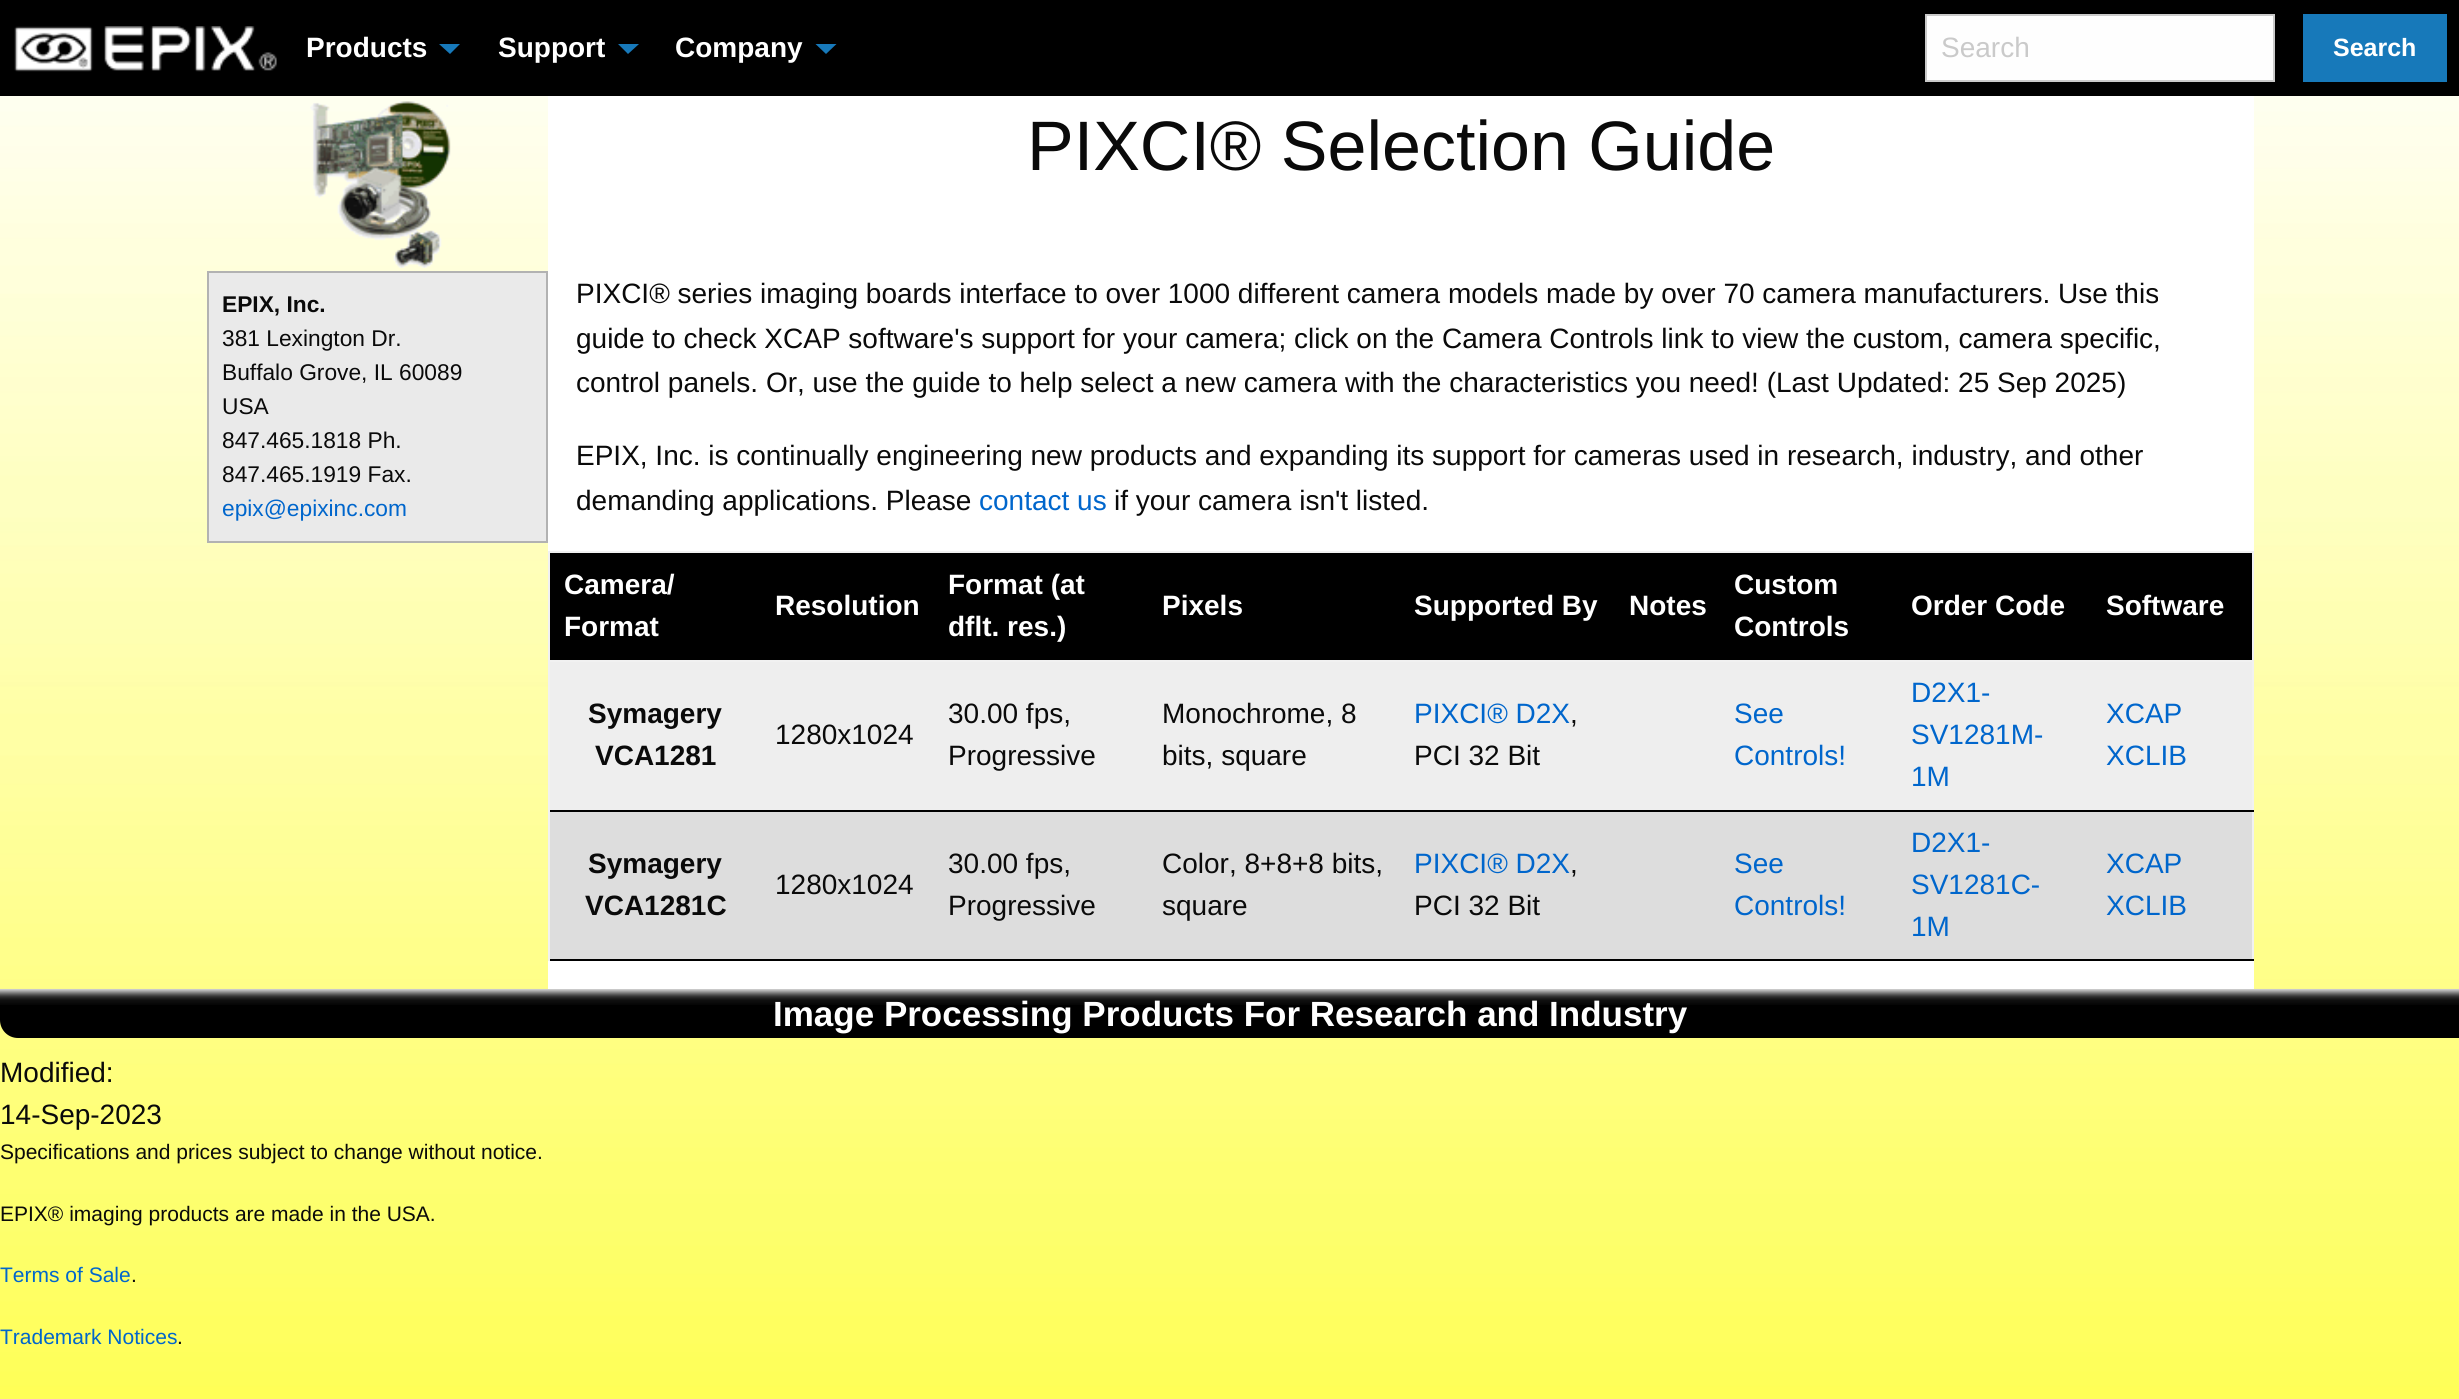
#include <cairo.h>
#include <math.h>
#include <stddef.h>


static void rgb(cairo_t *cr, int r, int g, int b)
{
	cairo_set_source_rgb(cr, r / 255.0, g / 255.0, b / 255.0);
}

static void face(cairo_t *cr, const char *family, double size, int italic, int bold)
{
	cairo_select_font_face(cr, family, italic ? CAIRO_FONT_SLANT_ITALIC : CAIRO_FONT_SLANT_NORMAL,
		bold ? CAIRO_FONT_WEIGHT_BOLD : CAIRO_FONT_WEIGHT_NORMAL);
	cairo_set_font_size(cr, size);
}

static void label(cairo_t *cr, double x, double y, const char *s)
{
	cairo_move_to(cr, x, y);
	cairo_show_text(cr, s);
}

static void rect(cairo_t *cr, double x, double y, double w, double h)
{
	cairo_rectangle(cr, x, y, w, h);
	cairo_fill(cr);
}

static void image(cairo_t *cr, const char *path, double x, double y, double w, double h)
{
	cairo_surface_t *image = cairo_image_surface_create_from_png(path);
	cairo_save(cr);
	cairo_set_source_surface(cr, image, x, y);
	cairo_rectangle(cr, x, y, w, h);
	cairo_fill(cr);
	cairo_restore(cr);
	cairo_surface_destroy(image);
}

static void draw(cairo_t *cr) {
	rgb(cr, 255, 255, 255);
	cairo_paint(cr);
	image(cr, "image0.png", 0, 96, 2459, 1303);
	rgb(cr, 0, 0, 0);
	rect(cr, 0, 0, 2459, 96);
	image(cr, "image1.png", 14, 26, 263, 46);
	face(cr, "Liberation Sans", 28, 0, 1);
	rgb(cr, 255, 255, 255);
	label(cr, 306, 57, "Products");
	rgb(cr, 23, 121, 186);
	cairo_new_path(cr);
	cairo_move_to(cr, 439, 44);
	cairo_line_to(cr, 460, 44);
	cairo_line_to(cr, 450, 54);
	cairo_close_path(cr);
	cairo_fill(cr);
	rgb(cr, 255, 255, 255);
	label(cr, 498, 57, "Support");
	rgb(cr, 23, 121, 186);
	cairo_new_path(cr);
	cairo_move_to(cr, 618, 44);
	cairo_line_to(cr, 639, 44);
	cairo_line_to(cr, 628, 54);
	cairo_close_path(cr);
	cairo_fill(cr);
	rgb(cr, 255, 255, 255);
	label(cr, 675, 57, "Company");
	rgb(cr, 23, 121, 186);
	cairo_new_path(cr);
	cairo_move_to(cr, 815.5, 44);
	cairo_line_to(cr, 836.5, 44);
	cairo_line_to(cr, 826, 54);
	cairo_close_path(cr);
	cairo_fill(cr);
	rgb(cr, 254, 254, 254);
	cairo_rectangle(cr, 1926, 15, 348, 66);
	cairo_fill_preserve(cr);
	rgb(cr, 202, 202, 202);
	cairo_stroke(cr);
	face(cr, "Liberation Sans", 28, 0, 0);
	label(cr, 1941, 57, "Search");
	rgb(cr, 23, 121, 186);
	rect(cr, 2303, 14, 144, 68);
	face(cr, "Liberation Sans", 25, 0, 1);
	rgb(cr, 255, 255, 255);
	label(cr, 2333, 56, "Search");
	image(cr, "image2.png", 310, 101, 141, 167);
	rgb(cr, 0, 0, 0);
	cairo_new_path(cr);
	cairo_move_to(cr, 0, 989);
	cairo_line_to(cr, 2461, 989);
	cairo_line_to(cr, 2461, 1038);
	cairo_line_to(cr, 18, 1038);
	cairo_curve_to(cr, 8, 1038, 0, 1030, 0, 1020);
	cairo_close_path(cr);
	cairo_fill(cr);
	image(cr, "image3.png", 0, 988, 2459, 17);
	rgb(cr, 255, 255, 255);
	rect(cr, 548, 96, 1706, 893);
	face(cr, "Liberation Sans", 70, 0, 0);
	rgb(cr, 10, 10, 10);
	label(cr, 1027, 170, "PIXCI® Selection Guide");
	rgb(cr, 234, 234, 234);
	cairo_rectangle(cr, 208, 272, 339, 270);
	cairo_fill_preserve(cr);
	rgb(cr, 178, 178, 178);
	cairo_stroke(cr);
	face(cr, "Liberation Sans", 22.75, 0, 1);
	rgb(cr, 10, 10, 10);
	label(cr, 222, 312, "EPIX, Inc.");
	face(cr, "Liberation Sans", 22.75, 0, 0);
	label(cr, 222, 346, "381 Lexington Dr.");
	label(cr, 222, 380, "Buffalo Grove, IL 60089");
	label(cr, 222, 414, "USA");
	label(cr, 222, 448, "847.465.1818 Ph.");
	label(cr, 222, 482, "847.465.1919 Fax.");
	rgb(cr, 0, 102, 204);
	label(cr, 222, 516, "epix@epixinc.com");
	face(cr, "Liberation Sans", 28, 0, 0);
	rgb(cr, 10, 10, 10);
	label(cr, 576, 303, "PIXCI® series imaging boards interface to over 1000 different camera models made by over 70 camera manufacturers. Use this");
	label(cr, 576, 348, "guide to check XCAP software's support for your camera; click on the Camera Controls link to view the custom, camera specific,");
	label(cr, 576, 392, "control panels. Or, use the guide to help select a new camera with the characteristics you need! (Last Updated: 25 Sep 2025)");
	label(cr, 576, 465, "EPIX, Inc. is continually engineering new products and expanding its support for cameras used in research, industry, and other");
	label(cr, 576, 510, "demanding applications. Please");
	rgb(cr, 0, 102, 204);
	label(cr, 979, 510, "contact us");
	rgb(cr, 10, 10, 10);
	label(cr, 1114, 510, "if your camera isn't listed.");
	rgb(cr, 0, 0, 0);
	rect(cr, 550, 553, 1702, 107);
	rgb(cr, 241, 241, 241);
	rect(cr, 548, 551, 1706, 2);
	rect(cr, 548, 660, 1706, 2);
	rect(cr, 2252, 810, 2, 151);
	rect(cr, 2252, 660, 2, 152);
	rect(cr, 2252, 551, 2, 111);
	rgb(cr, 0, 0, 0);
	rect(cr, 548, 959, 1706, 2);
	rgb(cr, 241, 241, 241);
	rect(cr, 548, 810, 2, 151);
	rgb(cr, 0, 0, 0);
	rect(cr, 548, 810, 1706, 2);
	rgb(cr, 241, 241, 241);
	rect(cr, 548, 660, 2, 152);
	rect(cr, 548, 551, 2, 111);
	face(cr, "Liberation Sans", 28, 0, 1);
	rgb(cr, 255, 255, 255);
	label(cr, 564, 594, "Camera/");
	label(cr, 564, 636, "Format");
	label(cr, 775, 615, "Resolution");
	label(cr, 948, 594, "Format (at");
	label(cr, 948, 636, "dflt. res.)");
	label(cr, 1162, 615, "Pixels");
	label(cr, 1414, 615, "Supported By");
	label(cr, 1629, 615, "Notes");
	label(cr, 1734, 594, "Custom");
	label(cr, 1734, 636, "Controls");
	label(cr, 1911, 615, "Order Code");
	label(cr, 2106, 615, "Software");
	rgb(cr, 238, 238, 238);
	rect(cr, 550, 662, 1702, 148);
	rgb(cr, 10, 10, 10);
	label(cr, 588, 723, "Symagery");
	label(cr, 595, 765, "VCA1281");
	face(cr, "Liberation Sans", 28, 0, 0);
	label(cr, 775, 744, "1280x1024");
	label(cr, 948, 723, "30.00 fps,");
	label(cr, 948, 765, "Progressive");
	label(cr, 1162, 723, "Monochrome, 8");
	label(cr, 1162, 765, "bits, square");
	rgb(cr, 0, 102, 204);
	label(cr, 1414, 723, "PIXCI® D2X");
	rgb(cr, 10, 10, 10);
	label(cr, 1570, 723, ",");
	label(cr, 1414, 765, "PCI 32 Bit");
	rgb(cr, 0, 102, 204);
	label(cr, 1734, 723, "See");
	label(cr, 1734, 765, "Controls!");
	label(cr, 1911, 702, "D2X1-");
	label(cr, 1911, 744, "SV1281M-");
	label(cr, 1911, 786, "1M");
	label(cr, 2106, 723, "XCAP");
	label(cr, 2106, 765, "XCLIB");
	rgb(cr, 221, 221, 221);
	rect(cr, 550, 812, 1702, 147);
	face(cr, "Liberation Sans", 28, 0, 1);
	rgb(cr, 10, 10, 10);
	label(cr, 588, 873, "Symagery");
	label(cr, 585, 915, "VCA1281C");
	face(cr, "Liberation Sans", 28, 0, 0);
	label(cr, 775, 894, "1280x1024");
	label(cr, 948, 873, "30.00 fps,");
	label(cr, 948, 915, "Progressive");
	label(cr, 1162, 873, "Color, 8+8+8 bits,");
	label(cr, 1162, 915, "square");
	rgb(cr, 0, 102, 204);
	label(cr, 1414, 873, "PIXCI® D2X");
	rgb(cr, 10, 10, 10);
	label(cr, 1570, 873, ",");
	label(cr, 1414, 915, "PCI 32 Bit");
	rgb(cr, 0, 102, 204);
	label(cr, 1734, 873, "See");
	label(cr, 1734, 915, "Controls!");
	label(cr, 1911, 852, "D2X1-");
	label(cr, 1911, 894, "SV1281C-");
	label(cr, 1911, 936, "1M");
	label(cr, 2106, 873, "XCAP");
	label(cr, 2106, 915, "XCLIB");
	face(cr, "Liberation Sans", 35, 0, 1);
	rgb(cr, 255, 255, 255);
	label(cr, 773, 1026, "Image Processing Products For Research and Industry");
	face(cr, "Liberation Sans", 28, 0, 0);
	rgb(cr, 10, 10, 10);
	label(cr, 0, 1082, "Modified:");
	label(cr, 0, 1124, "14-Sep-2023");
	face(cr, "Liberation Sans", 21, 0, 0);
	label(cr, 0, 1159, "Specifications and prices subject to change without notice.");
	label(cr, 0, 1221, "EPIX® imaging products are made in the USA.");
	rgb(cr, 0, 102, 204);
	label(cr, 0, 1282, "Terms of Sale");
	rgb(cr, 10, 10, 10);
	label(cr, 131, 1282, ".");
	rgb(cr, 0, 102, 204);
	label(cr, 0, 1344, "Trademark Notices");
	rgb(cr, 10, 10, 10);
	label(cr, 177, 1344, ".");
}

int main(void) {
	cairo_surface_t *surface = cairo_image_surface_create(CAIRO_FORMAT_RGB24, 2459, 1399);
	cairo_t *cr = cairo_create(surface);
	cairo_font_options_t *options = cairo_font_options_create();
	cairo_font_options_set_hint_metrics(options, CAIRO_HINT_METRICS_OFF);
	cairo_font_options_set_hint_style(options, CAIRO_HINT_STYLE_NONE);
	cairo_set_font_options(cr, options);
	cairo_set_miter_limit(cr, 4);
	draw(cr);
	cairo_surface_write_to_png(surface, "render.png");
	cairo_font_options_destroy(options);
	cairo_destroy(cr);
	cairo_surface_destroy(surface);
	return 0;
}
